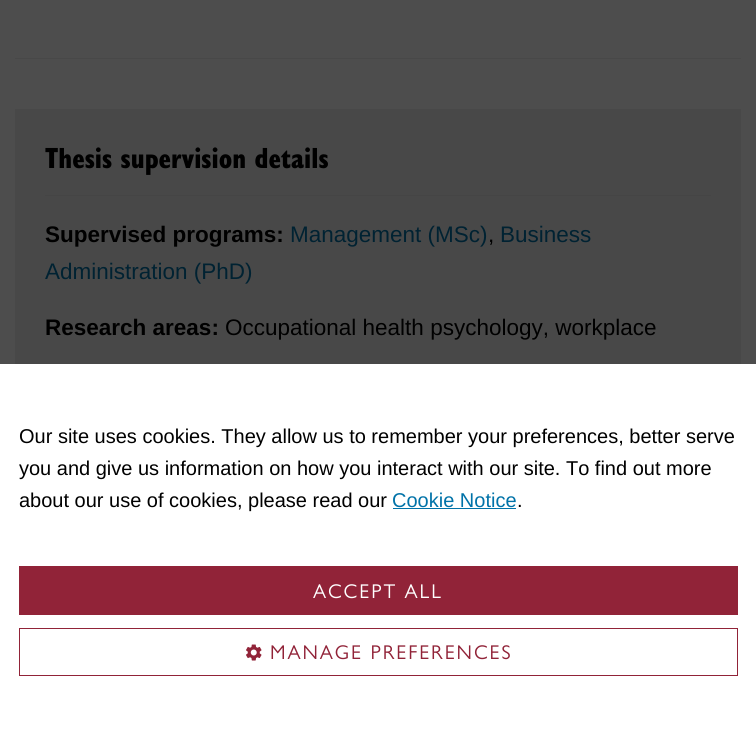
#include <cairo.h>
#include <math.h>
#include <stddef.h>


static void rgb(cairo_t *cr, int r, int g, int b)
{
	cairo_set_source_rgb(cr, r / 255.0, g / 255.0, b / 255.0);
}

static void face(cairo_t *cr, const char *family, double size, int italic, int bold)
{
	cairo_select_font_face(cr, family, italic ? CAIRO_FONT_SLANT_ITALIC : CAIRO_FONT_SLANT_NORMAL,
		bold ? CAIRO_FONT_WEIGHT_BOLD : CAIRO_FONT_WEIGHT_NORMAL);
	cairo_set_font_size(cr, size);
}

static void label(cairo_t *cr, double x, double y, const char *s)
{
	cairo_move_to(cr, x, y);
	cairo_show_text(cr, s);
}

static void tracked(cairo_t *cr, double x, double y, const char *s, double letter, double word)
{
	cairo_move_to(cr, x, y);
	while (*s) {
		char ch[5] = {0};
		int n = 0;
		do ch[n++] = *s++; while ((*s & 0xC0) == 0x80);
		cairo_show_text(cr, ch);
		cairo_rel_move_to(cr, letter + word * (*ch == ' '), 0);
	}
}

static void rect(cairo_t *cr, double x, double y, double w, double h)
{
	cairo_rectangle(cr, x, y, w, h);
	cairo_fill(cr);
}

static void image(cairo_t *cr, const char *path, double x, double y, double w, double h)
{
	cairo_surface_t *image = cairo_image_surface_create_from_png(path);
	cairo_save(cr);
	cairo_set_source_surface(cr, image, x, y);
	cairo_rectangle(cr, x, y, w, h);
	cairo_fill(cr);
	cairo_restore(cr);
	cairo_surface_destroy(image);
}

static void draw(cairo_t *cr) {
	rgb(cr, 77, 77, 77);
	cairo_paint(cr);
	rgb(cr, 72, 72, 72);
	rect(cr, 15, 58, 726, 1);
	rect(cr, 15, 109, 726, 255);
	face(cr, "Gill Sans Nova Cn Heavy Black", 30, 0, 0);
	rgb(cr, 0, 0, 0);
	label(cr, 45, 168, "Thesis supervision details");
	rgb(cr, 69, 69, 69);
	rect(cr, 45, 195, 666, 1);
	face(cr, "Liberation Sans", 22.5, 0, 1);
	rgb(cr, 0, 0, 0);
	label(cr, 45, 242, "Supervised programs:");
	face(cr, "Liberation Sans", 22.5, 0, 0);
	rgb(cr, 0, 34, 50);
	label(cr, 290, 242, "Management (MSc)");
	rgb(cr, 0, 0, 0);
	label(cr, 488, 242, ",");
	rgb(cr, 0, 34, 50);
	label(cr, 500, 242, "Business");
	label(cr, 45, 279, "Administration (PhD)");
	face(cr, "Liberation Sans", 22.5, 0, 1);
	rgb(cr, 0, 0, 0);
	label(cr, 45, 335, "Research areas:");
	face(cr, "Liberation Sans", 22.5, 0, 0);
	label(cr, 225, 335, "Occupational health psychology, workplace");
	rgb(cr, 255, 255, 255);
	rect(cr, 0, 364, 756, 381);
	face(cr, "Liberation Sans", 20, 0, 0);
	rgb(cr, 0, 0, 0);
	label(cr, 19, 443, "Our site uses cookies. They allow us to remember your preferences, better serve");
	label(cr, 19, 475, "you and give us information on how you interact with our site. To find out more");
	label(cr, 19, 507, "about our use of cookies, please read our");
	rgb(cr, 0, 114, 168);
	label(cr, 392, 507, "Cookie Notice");
	rect(cr, 393, 508, 123, 1);
	rgb(cr, 0, 0, 0);
	label(cr, 517, 507, ".");
	rgb(cr, 145, 35, 56);
	rect(cr, 19, 566, 719, 49);
	face(cr, "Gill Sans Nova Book", 20, 0, 0);
	rgb(cr, 255, 255, 255);
	tracked(cr, 313, 598, "ACCEPT ALL", 1.9, 0);
	cairo_rectangle(cr, 19.5, 628.5, 718, 47);
	rgb(cr, 145, 35, 56);
	cairo_set_line_width(cr, 1);
	cairo_stroke(cr);
	image(cr, "image0.png", 246, 644, 16, 17);
	tracked(cr, 270, 659, "MANAGE PREFERENCES", 1.9, 0);
}

int main(void) {
	cairo_surface_t *surface = cairo_image_surface_create(CAIRO_FORMAT_RGB24, 756, 745);
	cairo_t *cr = cairo_create(surface);
	cairo_font_options_t *options = cairo_font_options_create();
	cairo_font_options_set_hint_metrics(options, CAIRO_HINT_METRICS_OFF);
	cairo_font_options_set_hint_style(options, CAIRO_HINT_STYLE_NONE);
	cairo_set_font_options(cr, options);
	cairo_set_miter_limit(cr, 4);
	draw(cr);
	cairo_surface_write_to_png(surface, "render.png");
	cairo_font_options_destroy(options);
	cairo_destroy(cr);
	cairo_surface_destroy(surface);
	return 0;
}
